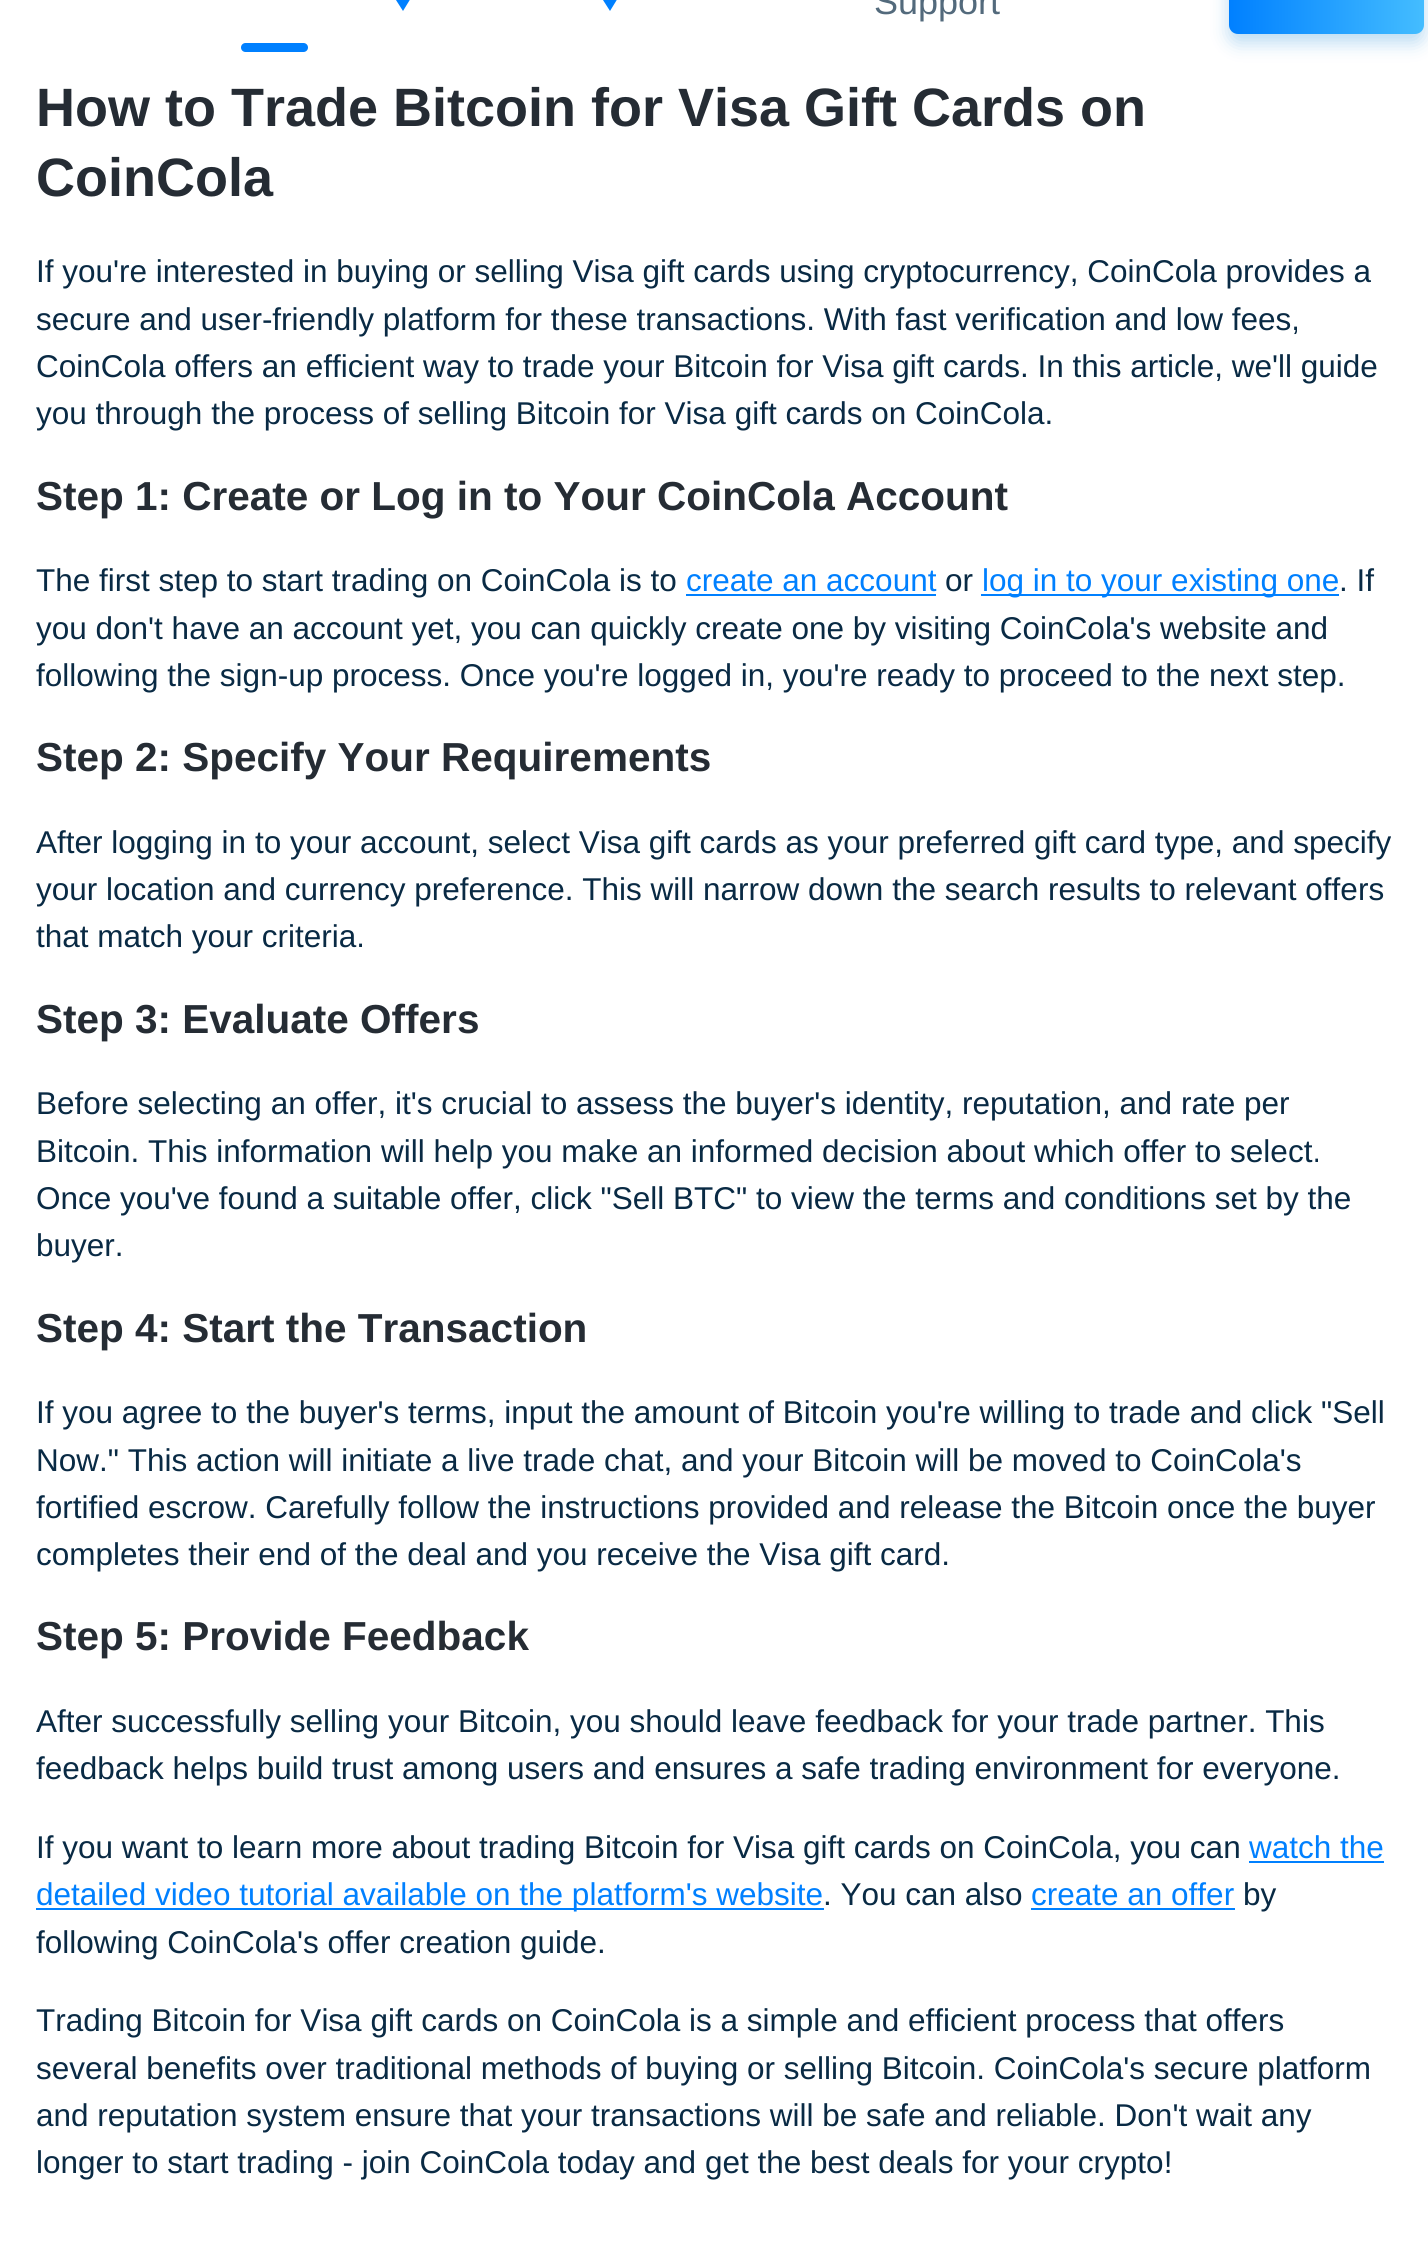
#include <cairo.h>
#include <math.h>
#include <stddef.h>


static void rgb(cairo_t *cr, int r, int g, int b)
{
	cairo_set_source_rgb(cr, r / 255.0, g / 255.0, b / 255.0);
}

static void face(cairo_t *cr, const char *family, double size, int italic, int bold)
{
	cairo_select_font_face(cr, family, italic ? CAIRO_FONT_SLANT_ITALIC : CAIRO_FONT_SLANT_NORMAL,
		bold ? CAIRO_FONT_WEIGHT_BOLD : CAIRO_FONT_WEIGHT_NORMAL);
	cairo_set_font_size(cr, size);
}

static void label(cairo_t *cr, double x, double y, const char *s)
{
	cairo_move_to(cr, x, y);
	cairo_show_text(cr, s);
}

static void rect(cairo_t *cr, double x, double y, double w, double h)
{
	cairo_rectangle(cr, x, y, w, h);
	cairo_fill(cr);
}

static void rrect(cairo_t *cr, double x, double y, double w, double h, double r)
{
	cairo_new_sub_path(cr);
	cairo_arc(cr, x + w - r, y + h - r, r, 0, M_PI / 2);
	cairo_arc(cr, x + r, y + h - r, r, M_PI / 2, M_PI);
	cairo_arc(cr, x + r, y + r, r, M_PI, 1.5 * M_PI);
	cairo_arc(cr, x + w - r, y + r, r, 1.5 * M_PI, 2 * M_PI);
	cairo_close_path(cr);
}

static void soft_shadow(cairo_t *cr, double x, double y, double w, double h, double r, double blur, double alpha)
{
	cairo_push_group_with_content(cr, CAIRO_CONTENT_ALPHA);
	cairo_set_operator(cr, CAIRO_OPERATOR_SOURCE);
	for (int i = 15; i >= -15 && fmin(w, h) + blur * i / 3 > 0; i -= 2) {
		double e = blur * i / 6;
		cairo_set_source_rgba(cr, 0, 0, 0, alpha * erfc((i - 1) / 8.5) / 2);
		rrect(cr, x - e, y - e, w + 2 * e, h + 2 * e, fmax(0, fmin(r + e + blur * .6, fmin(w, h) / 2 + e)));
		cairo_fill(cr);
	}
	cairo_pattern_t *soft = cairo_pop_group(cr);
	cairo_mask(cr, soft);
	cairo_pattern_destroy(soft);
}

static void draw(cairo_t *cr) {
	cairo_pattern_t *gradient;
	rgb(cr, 255, 255, 255);
	cairo_paint(cr);
	rgb(cr, 0, 128, 255);
	cairo_new_path(cr);
	cairo_move_to(cr, 391.5, -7);
	cairo_line_to(cr, 414, -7);
	cairo_line_to(cr, 403, 11);
	cairo_close_path(cr);
	cairo_fill(cr);
	rrect(cr, 241, 43, 67, 9, 4.5);
	cairo_fill(cr);
	cairo_new_path(cr);
	cairo_move_to(cr, 598.5, -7);
	cairo_line_to(cr, 621, -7);
	cairo_line_to(cr, 610, 11);
	cairo_close_path(cr);
	cairo_fill(cr);
	face(cr, "Liberation Sans", 36, 0, 0);
	rgb(cr, 83, 106, 124);
	label(cr, 874, 14, "Support");
	rgb(cr, 5, 127, 210);
	soft_shadow(cr, 1229, -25, 195, 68, 9, 9, 0.27);
	gradient = cairo_pattern_create_linear(1424, 0, 1229, 0);
	cairo_pattern_add_color_stop_rgba(gradient, 0, 0.267, 0.741, 1, 1);
	cairo_pattern_add_color_stop_rgba(gradient, 1, 0, 0.502, 1, 1);
	cairo_set_source(cr, gradient);
	cairo_pattern_destroy(gradient);
	rrect(cr, 1229, -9, 195, 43, 9);
	cairo_fill(cr);
	face(cr, "Liberation Sans", 54, 0, 1);
	rgb(cr, 37, 44, 52);
	label(cr, 36, 126, "How to Trade Bitcoin for Visa Gift Cards on");
	label(cr, 36, 196, "CoinCola");
	face(cr, "Liberation Sans", 31.5, 0, 0);
	rgb(cr, 9, 42, 68);
	label(cr, 36, 282, "If you're interested in buying or selling Visa gift cards using cryptocurrency, CoinCola provides a");
	label(cr, 36, 330, "secure and user-friendly platform for these transactions. With fast verification and low fees,");
	label(cr, 36, 377, "CoinCola offers an efficient way to trade your Bitcoin for Visa gift cards. In this article, we'll guide");
	label(cr, 36, 424, "you through the process of selling Bitcoin for Visa gift cards on CoinCola.");
	face(cr, "Liberation Sans", 40.5, 0, 1);
	rgb(cr, 37, 44, 52);
	label(cr, 36, 510, "Step 1: Create or Log in to Your CoinCola Account");
	face(cr, "Liberation Sans", 31.5, 0, 0);
	rgb(cr, 9, 42, 68);
	label(cr, 36, 591, "The first step to start trading on CoinCola is to");
	rgb(cr, 0, 128, 255);
	label(cr, 686, 591, "create an account");
	rect(cr, 686, 594, 250, 2);
	rgb(cr, 9, 42, 68);
	label(cr, 945, 591, "or");
	rgb(cr, 0, 128, 255);
	rect(cr, 981, 594, 358, 2);
	label(cr, 982, 591, "log in to your existing one");
	rgb(cr, 9, 42, 68);
	label(cr, 1339, 591, ". If");
	label(cr, 36, 639, "you don't have an account yet, you can quickly create one by visiting CoinCola's website and");
	label(cr, 36, 686, "following the sign-up process. Once you're logged in, you're ready to proceed to the next step.");
	face(cr, "Liberation Sans", 40.5, 0, 1);
	rgb(cr, 37, 44, 52);
	label(cr, 36, 771, "Step 2: Specify Your Requirements");
	face(cr, "Liberation Sans", 31.5, 0, 0);
	rgb(cr, 9, 42, 68);
	label(cr, 36, 853, "After logging in to your account, select Visa gift cards as your preferred gift card type, and specify");
	label(cr, 36, 900, "your location and currency preference. This will narrow down the search results to relevant offers");
	label(cr, 36, 947, "that match your criteria.");
	face(cr, "Liberation Sans", 40.5, 0, 1);
	rgb(cr, 37, 44, 52);
	label(cr, 36, 1033, "Step 3: Evaluate Offers");
	face(cr, "Liberation Sans", 31.5, 0, 0);
	rgb(cr, 9, 42, 68);
	label(cr, 36, 1114, "Before selecting an offer, it's crucial to assess the buyer's identity, reputation, and rate per");
	label(cr, 36, 1162, "Bitcoin. This information will help you make an informed decision about which offer to select.");
	label(cr, 36, 1209, "Once you've found a suitable offer, click \"Sell BTC\" to view the terms and conditions set by the");
	label(cr, 36, 1256, "buyer.");
	face(cr, "Liberation Sans", 40.5, 0, 1);
	rgb(cr, 37, 44, 52);
	label(cr, 36, 1342, "Step 4: Start the Transaction");
	face(cr, "Liberation Sans", 31.5, 0, 0);
	rgb(cr, 9, 42, 68);
	label(cr, 36, 1423, "If you agree to the buyer's terms, input the amount of Bitcoin you're willing to trade and click \"Sell");
	label(cr, 36, 1471, "Now.\" This action will initiate a live trade chat, and your Bitcoin will be moved to CoinCola's");
	label(cr, 36, 1518, "fortified escrow. Carefully follow the instructions provided and release the Bitcoin once the buyer");
	label(cr, 36, 1565, "completes their end of the deal and you receive the Visa gift card.");
	face(cr, "Liberation Sans", 40.5, 0, 1);
	rgb(cr, 37, 44, 52);
	label(cr, 36, 1650, "Step 5: Provide Feedback");
	face(cr, "Liberation Sans", 31.5, 0, 0);
	rgb(cr, 9, 42, 68);
	label(cr, 36, 1732, "After successfully selling your Bitcoin, you should leave feedback for your trade partner. This");
	label(cr, 36, 1779, "feedback helps build trust among users and ensures a safe trading environment for everyone.");
	label(cr, 36, 1858, "If you want to learn more about trading Bitcoin for Visa gift cards on CoinCola, you can");
	rgb(cr, 0, 128, 255);
	label(cr, 1249, 1858, "watch the");
	rect(cr, 1249, 1861, 135, 2);
	rect(cr, 36, 1908, 788, 2);
	label(cr, 36, 1905, "detailed video tutorial available on the platform's website");
	rgb(cr, 9, 42, 68);
	label(cr, 823, 1905, ". You can also");
	rgb(cr, 0, 128, 255);
	label(cr, 1031, 1905, "create an offer");
	rect(cr, 1031, 1908, 204, 2);
	rgb(cr, 9, 42, 68);
	label(cr, 1243, 1905, "by");
	label(cr, 36, 1953, "following CoinCola's offer creation guide.");
	label(cr, 36, 2031, "Trading Bitcoin for Visa gift cards on CoinCola is a simple and efficient process that offers");
	label(cr, 36, 2079, "several benefits over traditional methods of buying or selling Bitcoin. CoinCola's secure platform");
	label(cr, 36, 2126, "and reputation system ensure that your transactions will be safe and reliable. Don't wait any");
	label(cr, 36, 2173, "longer to start trading - join CoinCola today and get the best deals for your crypto!");
}

int main(void) {
	cairo_surface_t *surface = cairo_image_surface_create(CAIRO_FORMAT_RGB24, 1428, 2261);
	cairo_t *cr = cairo_create(surface);
	cairo_font_options_t *options = cairo_font_options_create();
	cairo_font_options_set_hint_metrics(options, CAIRO_HINT_METRICS_OFF);
	cairo_font_options_set_hint_style(options, CAIRO_HINT_STYLE_NONE);
	cairo_set_font_options(cr, options);
	cairo_set_miter_limit(cr, 4);
	draw(cr);
	cairo_surface_write_to_png(surface, "render.png");
	cairo_font_options_destroy(options);
	cairo_destroy(cr);
	cairo_surface_destroy(surface);
	return 0;
}
